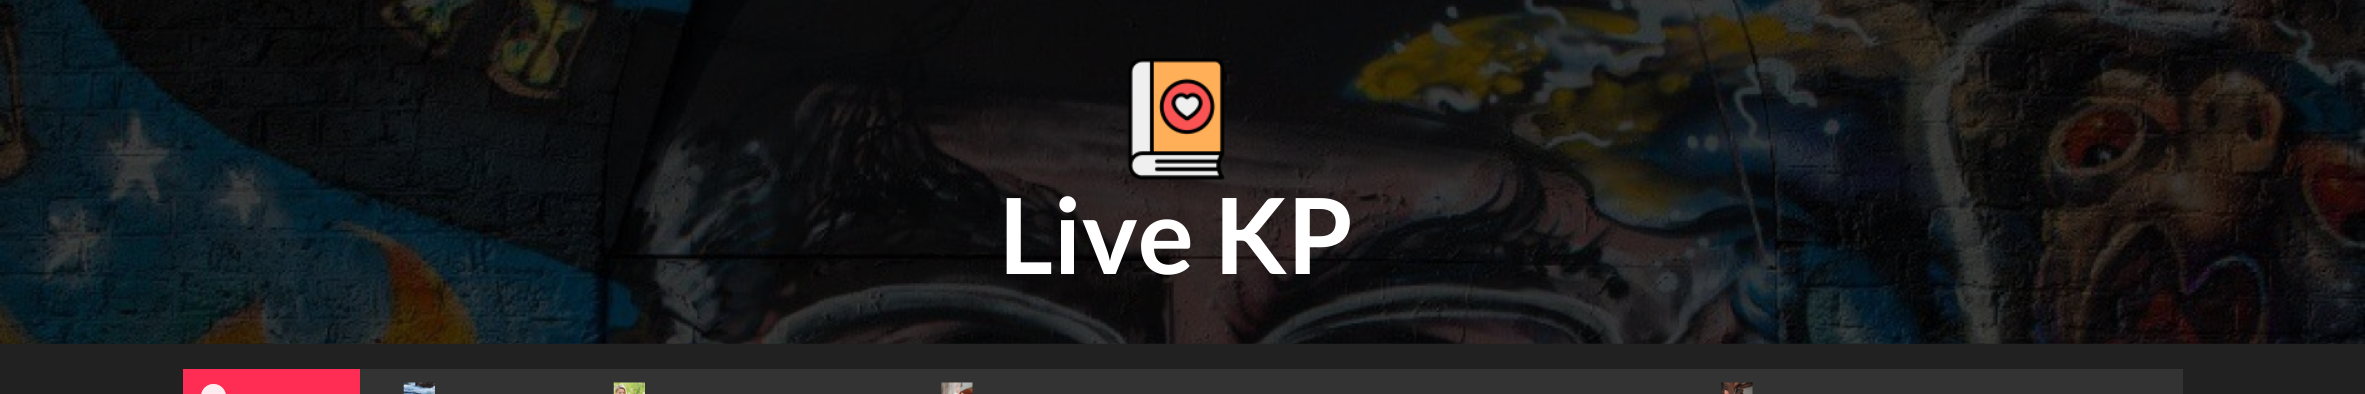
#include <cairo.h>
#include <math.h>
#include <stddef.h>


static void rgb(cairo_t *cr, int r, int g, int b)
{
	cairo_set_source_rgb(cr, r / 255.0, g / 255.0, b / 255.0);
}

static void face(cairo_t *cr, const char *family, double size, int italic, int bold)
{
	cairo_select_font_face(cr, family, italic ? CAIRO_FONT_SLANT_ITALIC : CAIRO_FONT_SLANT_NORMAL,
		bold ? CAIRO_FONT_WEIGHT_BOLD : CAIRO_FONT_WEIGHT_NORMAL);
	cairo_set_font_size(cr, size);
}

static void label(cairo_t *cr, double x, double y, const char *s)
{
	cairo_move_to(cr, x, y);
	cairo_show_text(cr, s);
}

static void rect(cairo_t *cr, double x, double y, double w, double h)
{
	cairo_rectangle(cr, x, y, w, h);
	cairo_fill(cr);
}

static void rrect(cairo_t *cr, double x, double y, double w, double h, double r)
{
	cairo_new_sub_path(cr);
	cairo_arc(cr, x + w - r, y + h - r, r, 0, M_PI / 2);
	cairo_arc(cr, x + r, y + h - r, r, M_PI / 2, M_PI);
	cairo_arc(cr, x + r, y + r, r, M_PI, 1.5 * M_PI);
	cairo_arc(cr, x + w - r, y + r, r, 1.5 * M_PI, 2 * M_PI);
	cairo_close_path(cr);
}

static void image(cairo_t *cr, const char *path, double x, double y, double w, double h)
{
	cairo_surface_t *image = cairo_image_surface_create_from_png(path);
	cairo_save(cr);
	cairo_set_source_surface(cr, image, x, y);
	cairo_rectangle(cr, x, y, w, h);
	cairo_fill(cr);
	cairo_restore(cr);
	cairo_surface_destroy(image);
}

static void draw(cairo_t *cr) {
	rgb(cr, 33, 33, 33);
	cairo_paint(cr);
	image(cr, "image0.png", 0, 0, 2365, 344);
	image(cr, "image1.png", 1127, 58, 98, 122);
	face(cr, "Lato", 105, 0, 1);
	rgb(cr, 255, 255, 255);
	label(cr, 999, 274, "Live KP");
	rgb(cr, 51, 51, 51);
	rect(cr, 360, 369, 1823, 25);
	rgb(cr, 255, 44, 84);
	rect(cr, 183, 369, 177, 25);
	rgb(cr, 255, 192, 204);
	rrect(cr, 201, 384, 25, 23, 12.5);
	cairo_fill(cr);
	cairo_set_source_rgba(cr, 1, 1, 1, 0.7);
	rrect(cr, 201, 384, 25, 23, 12.5);
	cairo_fill(cr);
	image(cr, "image2.png", 403, 382, 32, 12);
	image(cr, "image3.png", 613, 382, 32, 12);
	image(cr, "image4.png", 941, 382, 32, 12);
	image(cr, "image5.png", 1721, 382, 32, 12);
}

int main(void) {
	cairo_surface_t *surface = cairo_image_surface_create(CAIRO_FORMAT_RGB24, 2365, 394);
	cairo_t *cr = cairo_create(surface);
	cairo_font_options_t *options = cairo_font_options_create();
	cairo_font_options_set_hint_metrics(options, CAIRO_HINT_METRICS_OFF);
	cairo_font_options_set_hint_style(options, CAIRO_HINT_STYLE_NONE);
	cairo_set_font_options(cr, options);
	cairo_set_miter_limit(cr, 4);
	draw(cr);
	cairo_surface_write_to_png(surface, "render.png");
	cairo_font_options_destroy(options);
	cairo_destroy(cr);
	cairo_surface_destroy(surface);
	return 0;
}
